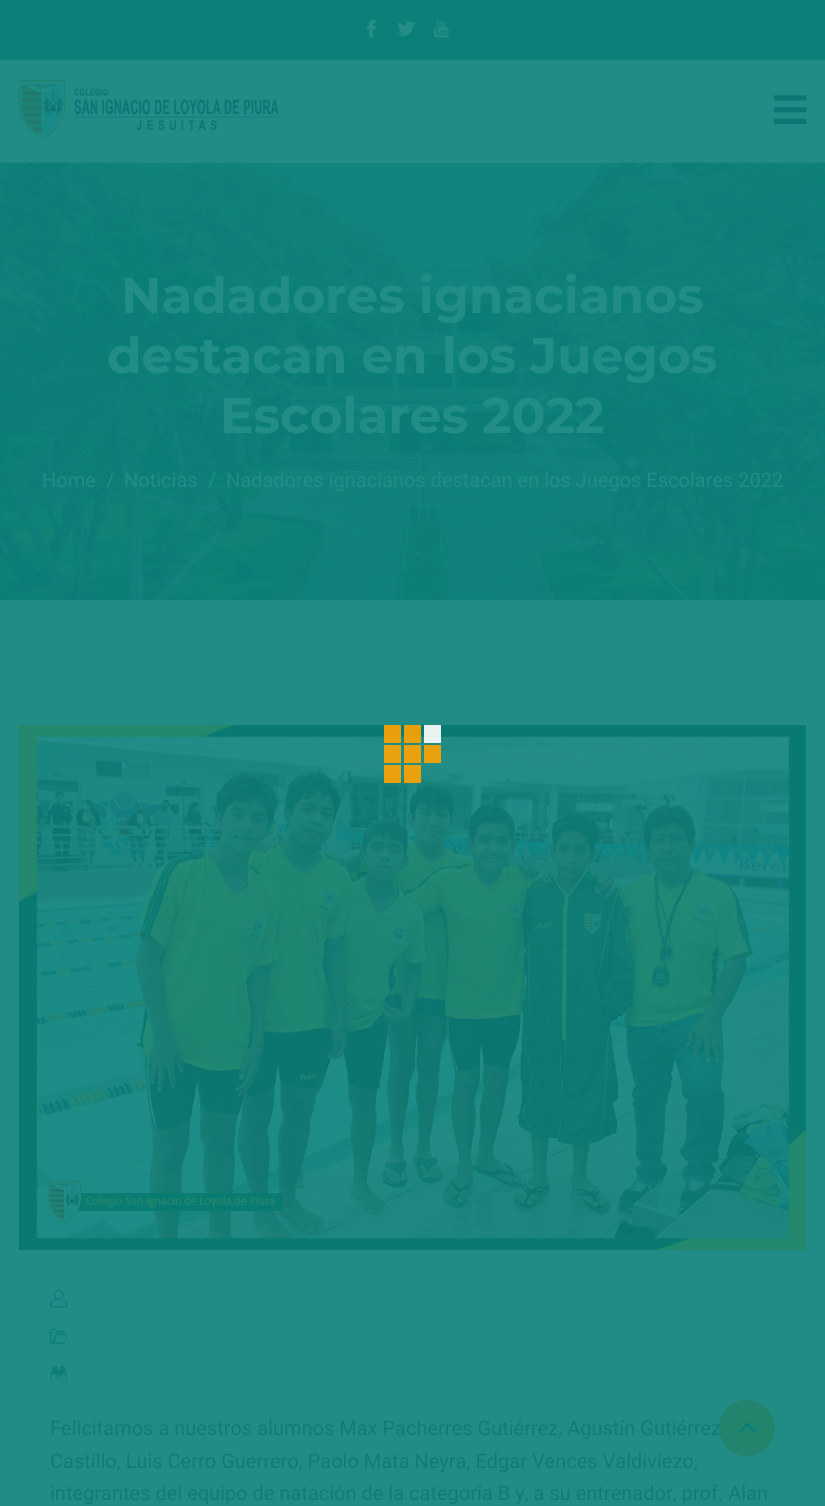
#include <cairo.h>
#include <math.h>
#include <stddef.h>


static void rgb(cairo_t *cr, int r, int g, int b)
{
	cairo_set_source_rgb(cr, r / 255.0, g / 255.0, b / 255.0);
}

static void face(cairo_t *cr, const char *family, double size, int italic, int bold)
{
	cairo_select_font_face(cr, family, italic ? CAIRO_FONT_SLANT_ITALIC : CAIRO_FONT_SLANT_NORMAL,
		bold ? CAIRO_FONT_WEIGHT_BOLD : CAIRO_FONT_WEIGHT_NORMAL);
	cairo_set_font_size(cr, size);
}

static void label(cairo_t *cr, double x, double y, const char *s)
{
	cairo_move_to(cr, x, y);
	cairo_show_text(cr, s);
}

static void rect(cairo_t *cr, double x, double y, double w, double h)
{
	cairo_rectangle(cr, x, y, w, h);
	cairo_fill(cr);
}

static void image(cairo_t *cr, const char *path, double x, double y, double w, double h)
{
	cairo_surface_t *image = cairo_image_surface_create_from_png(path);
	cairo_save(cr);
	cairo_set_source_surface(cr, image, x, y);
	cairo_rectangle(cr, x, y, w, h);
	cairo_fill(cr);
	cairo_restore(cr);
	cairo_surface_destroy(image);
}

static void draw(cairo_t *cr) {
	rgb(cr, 33, 139, 133);
	cairo_paint(cr);
	rgb(cr, 10, 128, 121);
	rect(cr, 0, 0, 825, 60);
	image(cr, "image0.png", 366, 20, 10, 18);
	image(cr, "image1.png", 397, 21, 18, 15);
	image(cr, "image2.png", 433, 20, 16, 18);
	image(cr, "image3.png", 18, 80, 261, 59);
	image(cr, "image4.png", 773, 95, 34, 30);
	image(cr, "image5.png", 0, 162, 825, 438);
	face(cr, "Montserrat", 50, 0, 1);
	rgb(cr, 34, 141, 134);
	label(cr, 121, 313, "Nadadores ignacianos");
	label(cr, 107, 373, "destacan en los Juegos");
	label(cr, 220, 433, "Escolares 2022");
	face(cr, "Roboto", 20, 0, 0);
	label(cr, 42, 487, "Home");
	label(cr, 106, 487, "/");
	label(cr, 124, 487, "Noticias");
	label(cr, 208, 487, "/");
	label(cr, 226, 487, "Nadadores ignacianos destacan en los Juegos Escolares 2022");
	image(cr, "image6.png", 18, 725, 789, 525);
	image(cr, "image7.png", 50, 1290, 18, 18);
	image(cr, "image8.png", 50, 1328, 18, 16);
	image(cr, "image9.png", 50, 1365, 18, 17);
	rgb(cr, 17, 123, 117);
	label(cr, 50, 1435, "Felicitamos a nuestros alumnos Max Pacherres Gutiérrez, Agustín Gutiérrez");
	label(cr, 50, 1468, "Castillo, Luis Cerro Guerrero, Paolo Mata Neyra, Edgar Vences Valdiviezo,");
	label(cr, 50, 1500, "integrantes del equipo de natación de la categoría B y, a su entrenador, prof. Alan");
	cairo_set_source_rgba(cr, 1, 0.639, 0.004, 0.9);
	rect(cr, 384, 725, 17, 18);
	rect(cr, 404, 725, 17, 18);
	cairo_set_source_rgba(cr, 1, 1, 1, 0.9);
	rect(cr, 424, 725, 17, 18);
	rgb(cr, 232, 161, 15);
	rect(cr, 384, 745, 17, 18);
	cairo_set_source_rgba(cr, 1, 0.639, 0.004, 0.9);
	rect(cr, 404, 745, 17, 18);
	rect(cr, 424, 745, 17, 18);
	rect(cr, 384, 765, 17, 18);
	rect(cr, 404, 765, 17, 18);
	cairo_set_source_rgba(cr, 0.133, 0.518, 0.427, 0.95);
	cairo_new_path(cr);
	cairo_arc(cr, 747, 1428, 28, 0, 2 * M_PI);
	cairo_fill(cr);
	image(cr, "image10.png", 739, 1422, 17, 11);
}

int main(void) {
	cairo_surface_t *surface = cairo_image_surface_create(CAIRO_FORMAT_RGB24, 825, 1506);
	cairo_t *cr = cairo_create(surface);
	cairo_font_options_t *options = cairo_font_options_create();
	cairo_font_options_set_hint_metrics(options, CAIRO_HINT_METRICS_OFF);
	cairo_font_options_set_hint_style(options, CAIRO_HINT_STYLE_NONE);
	cairo_set_font_options(cr, options);
	cairo_set_miter_limit(cr, 4);
	draw(cr);
	cairo_surface_write_to_png(surface, "render.png");
	cairo_font_options_destroy(options);
	cairo_destroy(cr);
	cairo_surface_destroy(surface);
	return 0;
}
